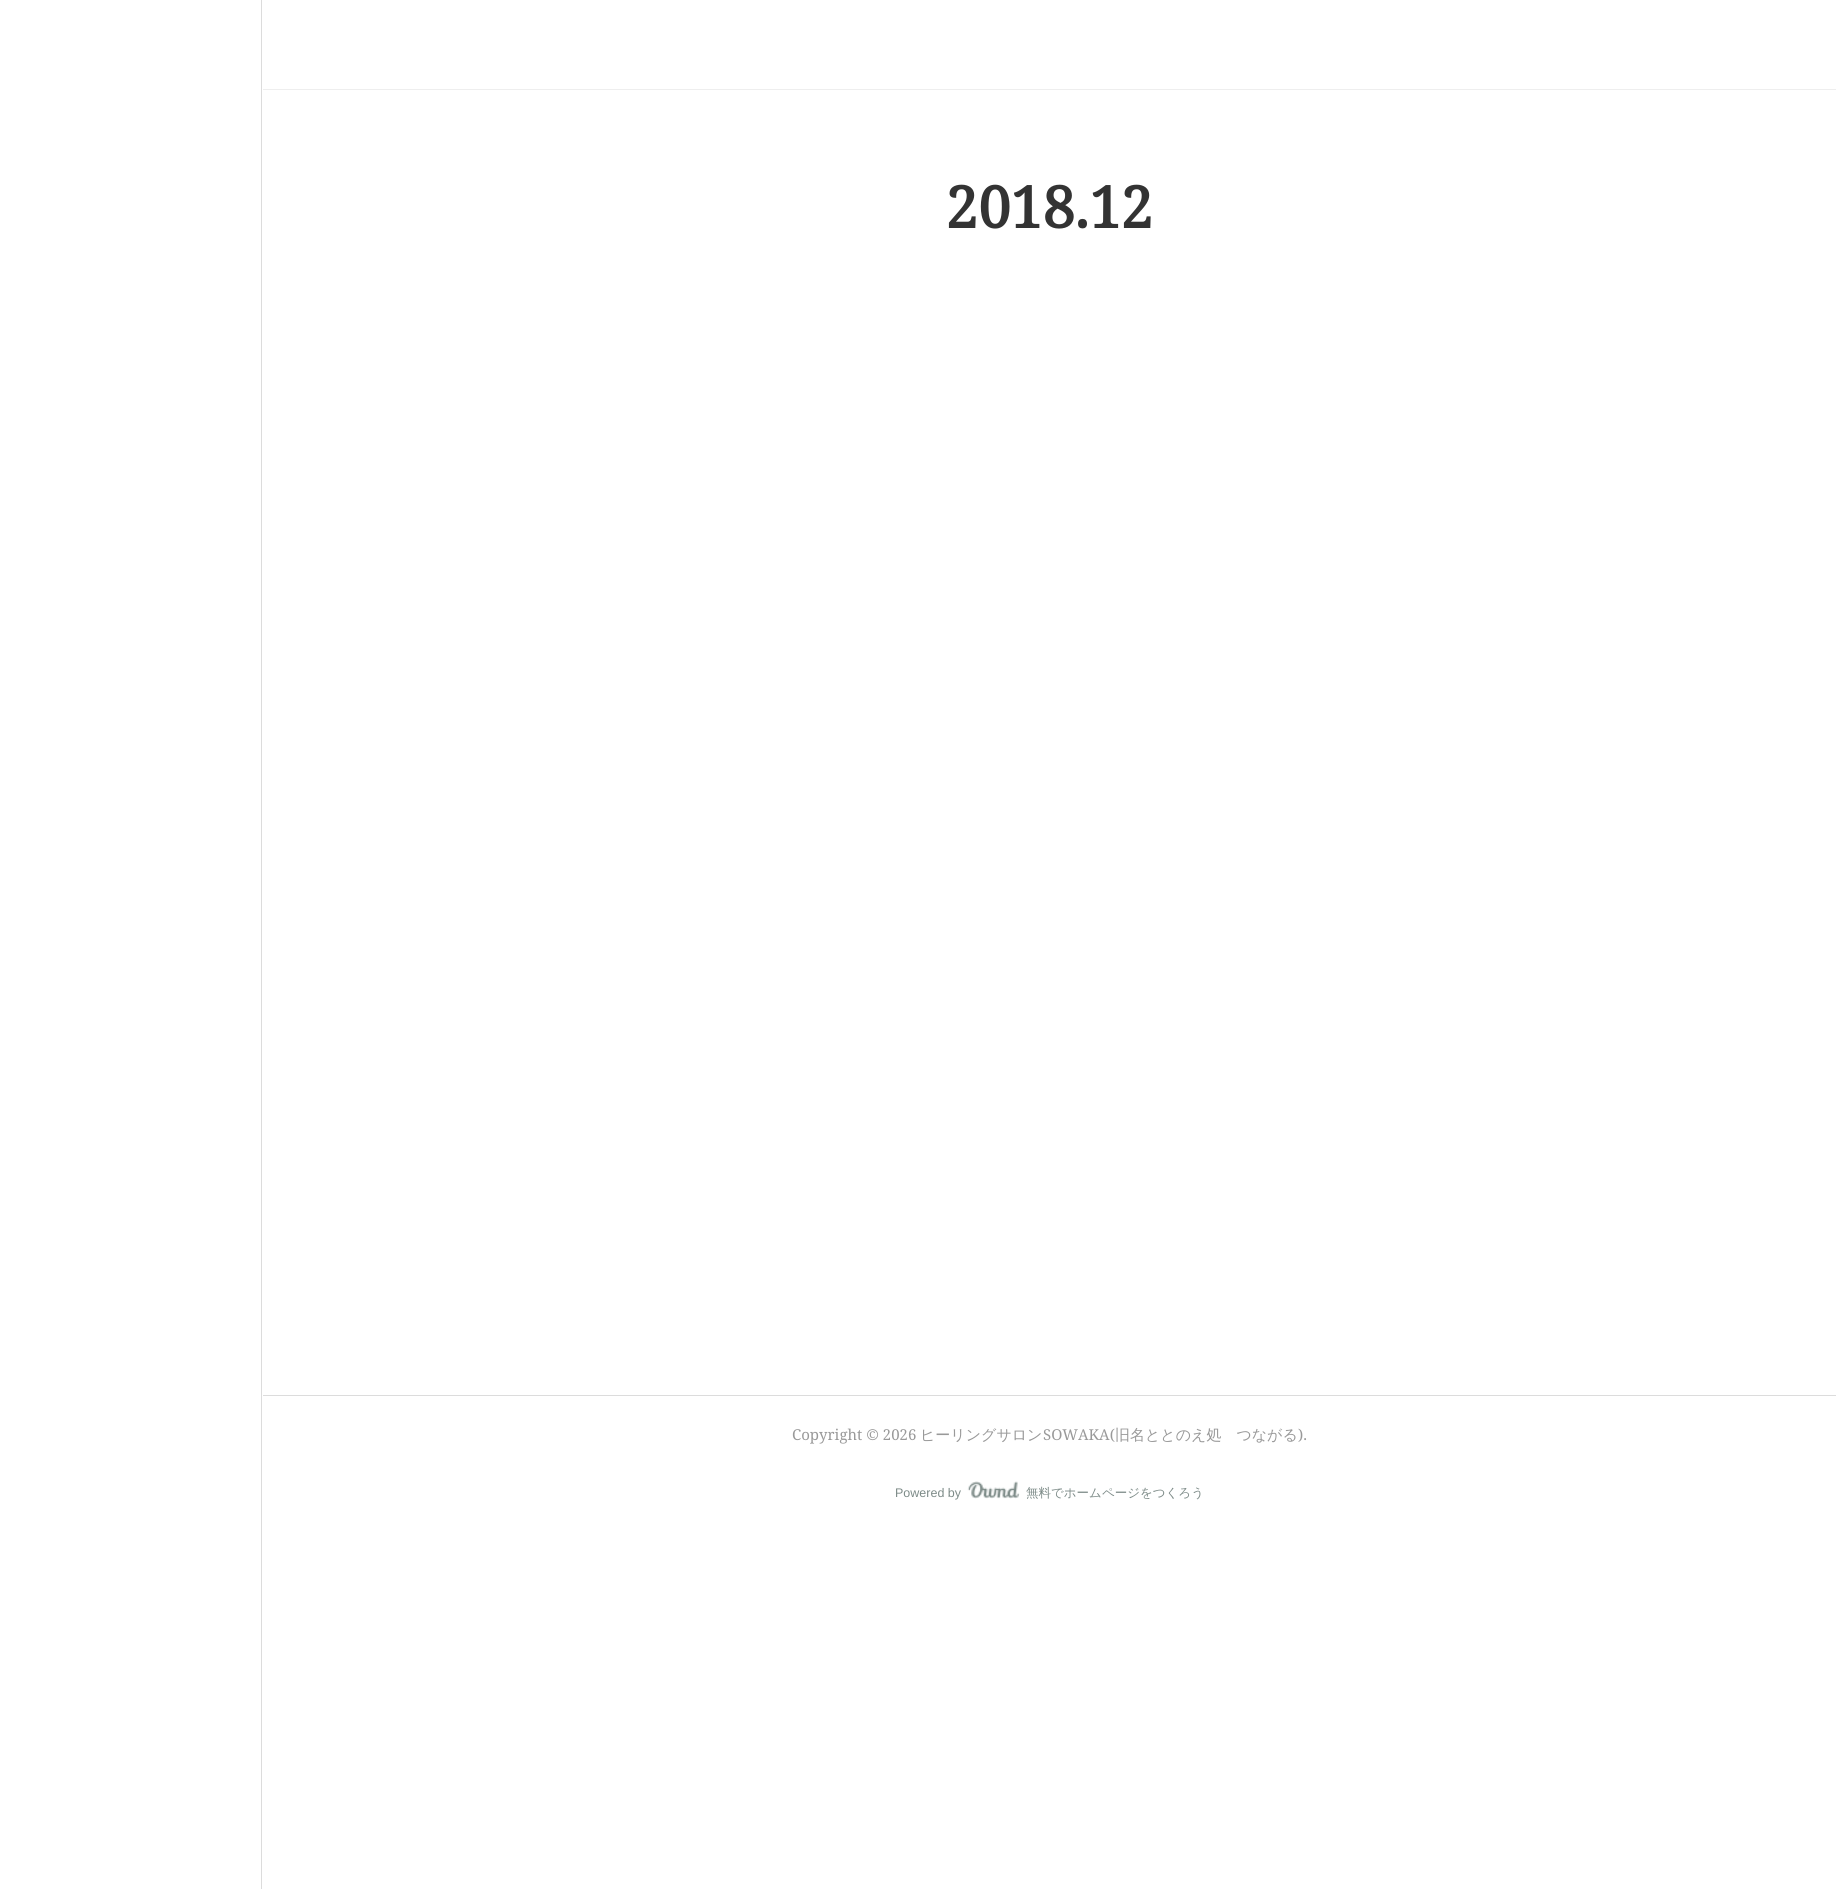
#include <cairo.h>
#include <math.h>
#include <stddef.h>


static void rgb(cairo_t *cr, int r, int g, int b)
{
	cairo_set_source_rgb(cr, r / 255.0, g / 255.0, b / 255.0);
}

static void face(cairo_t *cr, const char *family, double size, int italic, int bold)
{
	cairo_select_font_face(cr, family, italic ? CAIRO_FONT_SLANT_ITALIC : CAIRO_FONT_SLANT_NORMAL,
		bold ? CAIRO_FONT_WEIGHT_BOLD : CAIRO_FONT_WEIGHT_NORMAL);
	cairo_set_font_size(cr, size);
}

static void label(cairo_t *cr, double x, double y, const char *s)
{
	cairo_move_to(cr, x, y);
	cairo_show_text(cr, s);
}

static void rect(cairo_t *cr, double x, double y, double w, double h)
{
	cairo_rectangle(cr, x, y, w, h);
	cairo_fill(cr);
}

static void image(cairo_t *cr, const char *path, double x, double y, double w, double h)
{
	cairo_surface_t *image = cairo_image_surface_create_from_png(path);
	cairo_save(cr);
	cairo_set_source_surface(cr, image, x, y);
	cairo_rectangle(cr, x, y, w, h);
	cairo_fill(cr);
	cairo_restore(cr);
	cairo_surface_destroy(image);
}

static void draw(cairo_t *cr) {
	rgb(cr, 255, 255, 255);
	cairo_paint(cr);
	rgb(cr, 220, 220, 220);
	rect(cr, 261, 0, 1, 1889);
	rgb(cr, 238, 238, 238);
	rect(cr, 263, 89, 1573, 1);
	face(cr, "Noto Serif", 57.5, 0, 1);
	rgb(cr, 51, 51, 51);
	label(cr, 946, 228, "2018.12");
	rgb(cr, 220, 220, 220);
	rect(cr, 263, 1395, 1573, 1);
	face(cr, "Noto Serif", 15, 0, 0);
	rgb(cr, 153, 153, 153);
	label(cr, 792, 1440, "Copyright © 2026");
	face(cr, "WenQuanYi Zen Hei Medium", 15, 0, 0);
	label(cr, 920, 1440, "ヒーリングサロン");
	face(cr, "Noto Serif", 15, 0, 0);
	label(cr, 1043, 1440, "SOWAKA(");
	face(cr, "WenQuanYi Zen Hei Medium", 15, 0, 0);
	label(cr, 1115, 1440, "旧名ととのえ処　つながる");
	face(cr, "Noto Serif", 15, 0, 0);
	label(cr, 1298, 1440, ").");
	face(cr, "Liberation Sans", 12.5, 0, 0);
	rgb(cr, 125, 139, 136);
	label(cr, 895, 1497, "Powered by");
	image(cr, "image0.png", 967, 1481, 53, 18);
	face(cr, "WenQuanYi Zen Hei Medium", 12.5, 0, 0);
	label(cr, 1026, 1497, "無料でホームページをつくろう");
}

int main(void) {
	cairo_surface_t *surface = cairo_image_surface_create(CAIRO_FORMAT_RGB24, 1836, 1889);
	cairo_t *cr = cairo_create(surface);
	cairo_font_options_t *options = cairo_font_options_create();
	cairo_font_options_set_hint_metrics(options, CAIRO_HINT_METRICS_OFF);
	cairo_font_options_set_hint_style(options, CAIRO_HINT_STYLE_NONE);
	cairo_set_font_options(cr, options);
	cairo_set_miter_limit(cr, 4);
	draw(cr);
	cairo_surface_write_to_png(surface, "render.png");
	cairo_font_options_destroy(options);
	cairo_destroy(cr);
	cairo_surface_destroy(surface);
	return 0;
}
